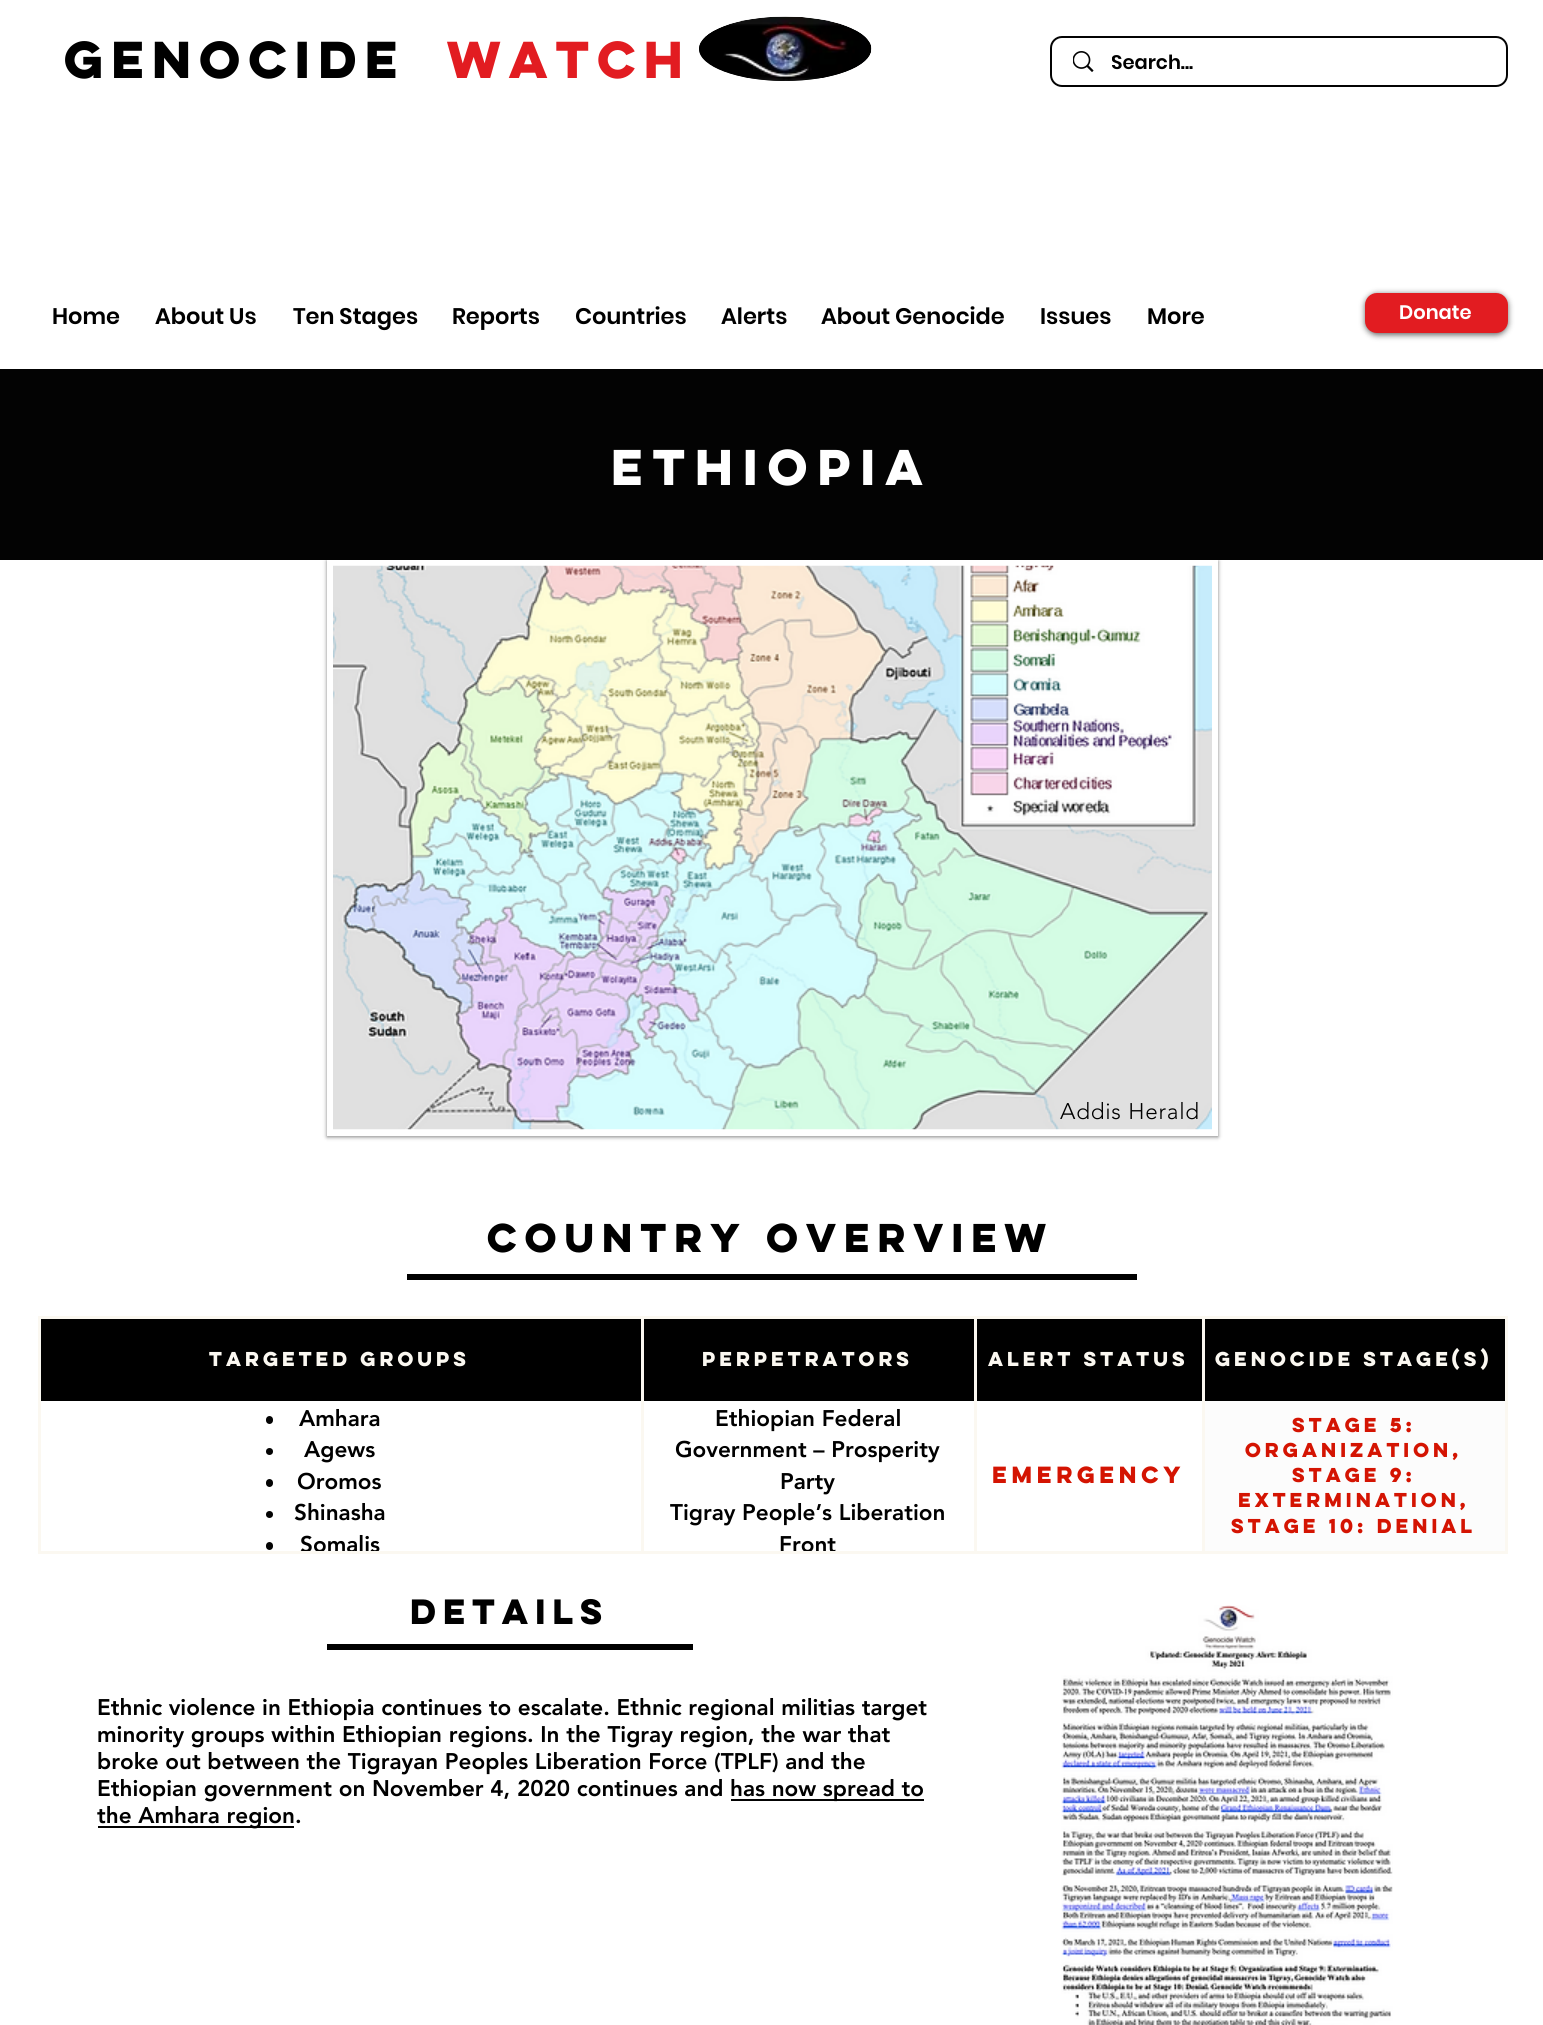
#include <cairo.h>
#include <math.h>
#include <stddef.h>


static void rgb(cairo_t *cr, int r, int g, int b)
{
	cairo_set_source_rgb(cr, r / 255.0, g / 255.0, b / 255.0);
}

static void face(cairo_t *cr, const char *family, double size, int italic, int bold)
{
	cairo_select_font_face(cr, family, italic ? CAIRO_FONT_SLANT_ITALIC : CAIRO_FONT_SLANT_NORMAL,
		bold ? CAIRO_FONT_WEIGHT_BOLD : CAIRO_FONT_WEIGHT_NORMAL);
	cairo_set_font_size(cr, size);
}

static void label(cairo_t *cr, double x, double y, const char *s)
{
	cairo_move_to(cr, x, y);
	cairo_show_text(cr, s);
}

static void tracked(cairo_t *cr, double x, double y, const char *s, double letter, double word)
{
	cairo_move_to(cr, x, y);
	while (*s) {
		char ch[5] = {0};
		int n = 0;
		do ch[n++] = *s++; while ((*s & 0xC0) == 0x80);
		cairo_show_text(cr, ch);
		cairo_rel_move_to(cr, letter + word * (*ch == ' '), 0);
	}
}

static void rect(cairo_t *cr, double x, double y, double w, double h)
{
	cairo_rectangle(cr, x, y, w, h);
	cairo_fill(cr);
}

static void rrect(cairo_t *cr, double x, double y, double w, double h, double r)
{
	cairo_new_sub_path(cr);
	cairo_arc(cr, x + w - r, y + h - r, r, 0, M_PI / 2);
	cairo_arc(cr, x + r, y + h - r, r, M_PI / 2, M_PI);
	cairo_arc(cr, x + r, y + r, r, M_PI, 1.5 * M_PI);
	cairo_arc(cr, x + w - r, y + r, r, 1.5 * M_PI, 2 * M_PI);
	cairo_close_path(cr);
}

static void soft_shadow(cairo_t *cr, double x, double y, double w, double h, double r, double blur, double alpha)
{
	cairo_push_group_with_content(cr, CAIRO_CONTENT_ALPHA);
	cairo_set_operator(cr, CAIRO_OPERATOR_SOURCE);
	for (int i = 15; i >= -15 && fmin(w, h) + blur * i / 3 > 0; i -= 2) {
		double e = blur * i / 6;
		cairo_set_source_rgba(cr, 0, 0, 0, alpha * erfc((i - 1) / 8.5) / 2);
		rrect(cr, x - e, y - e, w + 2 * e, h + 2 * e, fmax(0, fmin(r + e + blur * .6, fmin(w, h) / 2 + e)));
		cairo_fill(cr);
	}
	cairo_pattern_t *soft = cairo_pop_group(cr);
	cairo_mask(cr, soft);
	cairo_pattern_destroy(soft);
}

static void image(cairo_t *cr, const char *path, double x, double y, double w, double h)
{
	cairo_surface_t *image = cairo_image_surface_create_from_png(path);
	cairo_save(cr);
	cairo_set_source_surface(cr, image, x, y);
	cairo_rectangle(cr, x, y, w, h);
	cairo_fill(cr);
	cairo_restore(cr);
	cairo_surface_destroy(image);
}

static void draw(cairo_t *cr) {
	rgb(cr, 255, 255, 255);
	cairo_paint(cr);
	face(cr, "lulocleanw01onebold", 46.5, 0, 1);
	rgb(cr, 0, 0, 0);
	tracked(cr, 64, 78, "GENOCIDE", -2.25, 0);
	rgb(cr, 226, 28, 33);
	tracked(cr, 447, 78, "WATCH", -2.25, 0);
	rgb(cr, 3, 3, 3);
	cairo_new_path(cr);
	cairo_move_to(cr, 785, 17);
	cairo_curve_to(cr, 832.5, 17, 871, 31.5, 871, 49);
	cairo_curve_to(cr, 871, 66.5, 832.5, 81, 785, 81);
	cairo_curve_to(cr, 737.5, 81, 699, 66.5, 699, 49);
	cairo_curve_to(cr, 699, 31.5, 737.5, 17, 785, 17);
	cairo_close_path(cr);
	cairo_fill(cr);
	image(cr, "image0.png", 699, 16, 173, 65);
	rrect(cr, 1051, 37, 456, 49, 11);
	cairo_stroke(cr);
	image(cr, "image1.png", 1073, 51, 21, 21);
	cairo_save(cr);
	cairo_rectangle(cr, 1112, 48, 331, 30);
	cairo_clip(cr);
	face(cr, "Poppins SemiBold", 19.5, 0, 0);
	rgb(cr, 0, 0, 0);
	label(cr, 1111, 69, "Search...");
	cairo_restore(cr);
	face(cr, "Poppins SemiBold", 22.5, 0, 0);
	rgb(cr, 0, 0, 0);
	label(cr, 52, 324, "Home");
	label(cr, 155, 324, "About Us");
	label(cr, 293, 324, "Ten Stages");
	label(cr, 452, 324, "Reports");
	label(cr, 575, 324, "Countries");
	label(cr, 721, 324, "Alerts");
	label(cr, 821, 324, "About Genocide");
	label(cr, 1040, 324, "Issues");
	label(cr, 1147, 324, "More");
	rgb(cr, 0, 0, 0);
	soft_shadow(cr, 1365, 294, 143, 41, 12, 3, 0.6);
	rgb(cr, 226, 28, 33);
	rrect(cr, 1365, 293, 143, 40, 12);
	cairo_fill(cr);
	face(cr, "Poppins SemiBold", 19.5, 0, 0);
	rgb(cr, 255, 255, 255);
	label(cr, 1399, 319, "Donate");
	rgb(cr, 3, 3, 3);
	rect(cr, 0, 369, 1543, 191);
	face(cr, "lulocleanw01onebold", 45, 0, 1);
	rgb(cr, 255, 255, 255);
	label(cr, 611, 485, "Ethiopia");
	rgb(cr, 0, 0, 0);
	soft_shadow(cr, 327, 561, 891, 576, 0, 2, 0.5);
	rgb(cr, 255, 255, 255);
	rect(cr, 327, 560, 891, 576);
	image(cr, "image2.png", 333, 565, 879, 565);
	face(cr, "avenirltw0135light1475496 Light", 22.5, 0, 0);
	rgb(cr, 0, 0, 0);
	tracked(cr, 1060, 1119, "Addis Herald", 0.75, 0);
	face(cr, "lulocleanw01onebold", 36, 0, 1);
	label(cr, 487, 1252, "Country Overview");
	rect(cr, 407, 1274, 730, 6);
	cairo_rectangle(cr, 39.5, 1317.5, 1467, 235);
	rgb(cr, 251, 248, 241);
	cairo_set_line_width(cr, 3);
	cairo_stroke(cr);
	rgb(cr, 0, 0, 0);
	rect(cr, 41, 1319, 1464, 82);
	rgb(cr, 251, 248, 241);
	rect(cr, 641, 1319, 3, 232);
	face(cr, "lulocleanw01onebold", 18, 0, 1);
	label(cr, 209, 1366, "Targeted Groups");
	rect(cr, 974, 1319, 3, 232);
	label(cr, 702, 1366, "Perpetrators");
	rect(cr, 1202, 1319, 3, 232);
	label(cr, 988, 1366, "Alert Status");
	label(cr, 1215, 1366, "Genocide Stage(s)");
	rgb(cr, 3, 3, 3);
	rrect(cr, 266, 1416, 7, 8, 3.5);
	cairo_fill(cr);
	face(cr, "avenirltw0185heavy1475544 Black", 22.5, 0, 0);
	rgb(cr, 0, 0, 0);
	label(cr, 299, 1426, "Amhara");
	rgb(cr, 3, 3, 3);
	cairo_new_path(cr);
	cairo_arc(cr, 269.5, 1451.5, 3.5, 0, 2 * M_PI);
	cairo_fill(cr);
	rgb(cr, 0, 0, 0);
	label(cr, 304, 1457, "Agews");
	rgb(cr, 3, 3, 3);
	rrect(cr, 266, 1479, 7, 8, 3.5);
	cairo_fill(cr);
	rgb(cr, 0, 0, 0);
	label(cr, 297, 1489, "Oromos");
	rgb(cr, 3, 3, 3);
	cairo_new_path(cr);
	cairo_arc(cr, 269.5, 1514.5, 3.5, 0, 2 * M_PI);
	cairo_fill(cr);
	rgb(cr, 0, 0, 0);
	label(cr, 294, 1520, "Shinasha");
	rgb(cr, 3, 3, 3);
	rrect(cr, 266, 1542, 7, 8, 3.5);
	cairo_fill(cr);
	cairo_save(cr);
	cairo_rectangle(cr, 41, 1401, 600, 150);
	cairo_clip(cr);
	rgb(cr, 0, 0, 0);
	label(cr, 300, 1552, "Somalis");
	cairo_restore(cr);
	rgb(cr, 0, 0, 0);
	label(cr, 715, 1426, "Ethiopian Federal");
	label(cr, 675, 1457, "Government – Prosperity");
	label(cr, 780, 1489, "Party");
	label(cr, 670, 1520, "Tigray People’s Liberation");
	cairo_save(cr);
	cairo_rectangle(cr, 644, 1401, 330, 150);
	cairo_clip(cr);
	label(cr, 779, 1552, "Front");
	cairo_restore(cr);
	face(cr, "lulocleanw01onebold", 21, 0, 1);
	rgb(cr, 212, 20, 2);
	label(cr, 992, 1483, "Emergency");
	rgb(cr, 252, 252, 252);
	rect(cr, 1205, 1401, 300, 150);
	face(cr, "lulocleanw01onebold", 18, 0, 1);
	rgb(cr, 212, 20, 2);
	label(cr, 1292, 1432, "Stage 5:");
	label(cr, 1245, 1457, "Organization,");
	label(cr, 1292, 1482, "Stage 9:");
	label(cr, 1238, 1507, "Extermination,");
	label(cr, 1231, 1533, "Stage 10: Denial");
	face(cr, "lulocleanw01onebold", 31.5, 0, 1);
	rgb(cr, 0, 0, 0);
	label(cr, 410, 1624, "Details");
	image(cr, "image3.png", 1061, 1605, 332, 420);
	rect(cr, 327, 1644, 366, 6);
	face(cr, "avenirltw0185heavy1475544 Black", 22.5, 0, 0);
	label(cr, 97, 1715, "Ethnic violence in Ethiopia continues to escalate. Ethnic regional militias target");
	label(cr, 97, 1742, "minority groups within Ethiopian regions. In the Tigray region, the war that");
	label(cr, 97, 1769, "broke out between the Tigrayan Peoples Liberation Force (TPLF) and the");
	label(cr, 97, 1796, "Ethiopian government on November 4, 2020 continues and");
	rgb(cr, 3, 3, 3);
	rect(cr, 731, 1799, 193, 2);
	rgb(cr, 0, 0, 0);
	label(cr, 730, 1796, "has now spread to");
	rgb(cr, 3, 3, 3);
	rect(cr, 98, 1826, 196, 2);
	rgb(cr, 0, 0, 0);
	label(cr, 97, 1823, "the Amhara region.");
}

int main(void) {
	cairo_surface_t *surface = cairo_image_surface_create(CAIRO_FORMAT_RGB24, 1543, 2025);
	cairo_t *cr = cairo_create(surface);
	cairo_font_options_t *options = cairo_font_options_create();
	cairo_font_options_set_hint_metrics(options, CAIRO_HINT_METRICS_OFF);
	cairo_font_options_set_hint_style(options, CAIRO_HINT_STYLE_NONE);
	cairo_set_font_options(cr, options);
	cairo_set_miter_limit(cr, 4);
	draw(cr);
	cairo_surface_write_to_png(surface, "render.png");
	cairo_font_options_destroy(options);
	cairo_destroy(cr);
	cairo_surface_destroy(surface);
	return 0;
}
